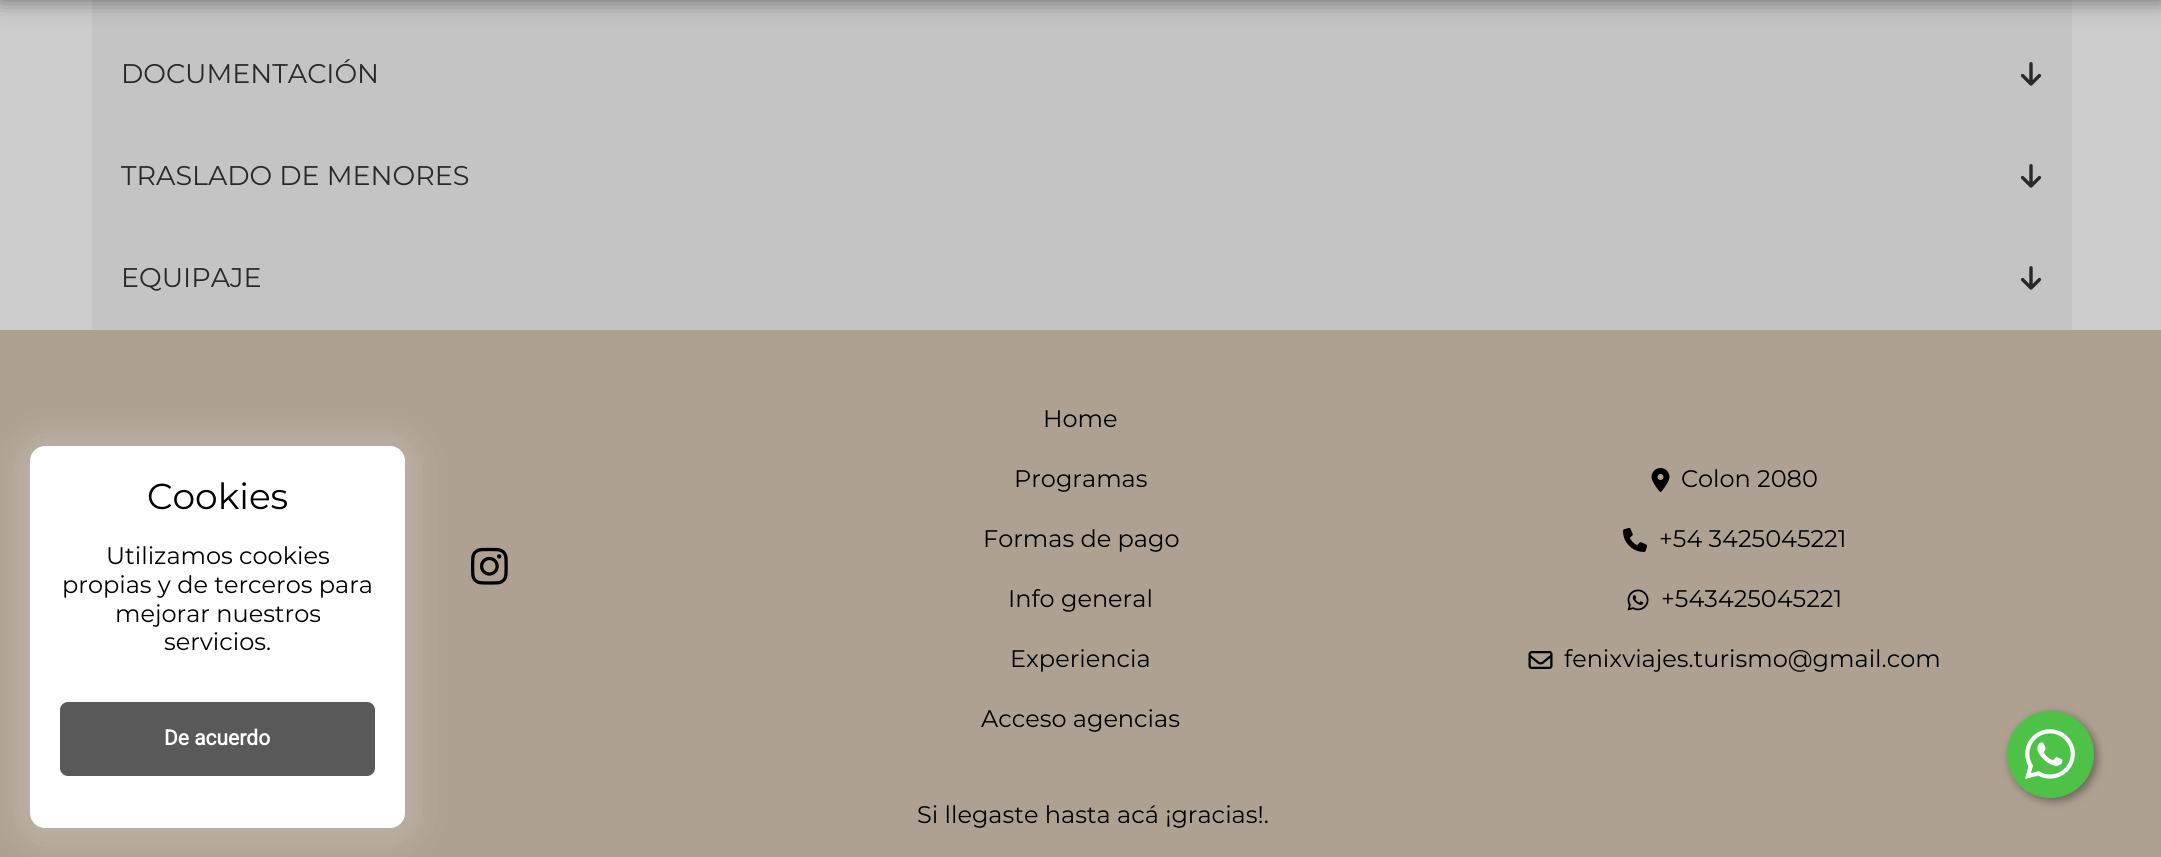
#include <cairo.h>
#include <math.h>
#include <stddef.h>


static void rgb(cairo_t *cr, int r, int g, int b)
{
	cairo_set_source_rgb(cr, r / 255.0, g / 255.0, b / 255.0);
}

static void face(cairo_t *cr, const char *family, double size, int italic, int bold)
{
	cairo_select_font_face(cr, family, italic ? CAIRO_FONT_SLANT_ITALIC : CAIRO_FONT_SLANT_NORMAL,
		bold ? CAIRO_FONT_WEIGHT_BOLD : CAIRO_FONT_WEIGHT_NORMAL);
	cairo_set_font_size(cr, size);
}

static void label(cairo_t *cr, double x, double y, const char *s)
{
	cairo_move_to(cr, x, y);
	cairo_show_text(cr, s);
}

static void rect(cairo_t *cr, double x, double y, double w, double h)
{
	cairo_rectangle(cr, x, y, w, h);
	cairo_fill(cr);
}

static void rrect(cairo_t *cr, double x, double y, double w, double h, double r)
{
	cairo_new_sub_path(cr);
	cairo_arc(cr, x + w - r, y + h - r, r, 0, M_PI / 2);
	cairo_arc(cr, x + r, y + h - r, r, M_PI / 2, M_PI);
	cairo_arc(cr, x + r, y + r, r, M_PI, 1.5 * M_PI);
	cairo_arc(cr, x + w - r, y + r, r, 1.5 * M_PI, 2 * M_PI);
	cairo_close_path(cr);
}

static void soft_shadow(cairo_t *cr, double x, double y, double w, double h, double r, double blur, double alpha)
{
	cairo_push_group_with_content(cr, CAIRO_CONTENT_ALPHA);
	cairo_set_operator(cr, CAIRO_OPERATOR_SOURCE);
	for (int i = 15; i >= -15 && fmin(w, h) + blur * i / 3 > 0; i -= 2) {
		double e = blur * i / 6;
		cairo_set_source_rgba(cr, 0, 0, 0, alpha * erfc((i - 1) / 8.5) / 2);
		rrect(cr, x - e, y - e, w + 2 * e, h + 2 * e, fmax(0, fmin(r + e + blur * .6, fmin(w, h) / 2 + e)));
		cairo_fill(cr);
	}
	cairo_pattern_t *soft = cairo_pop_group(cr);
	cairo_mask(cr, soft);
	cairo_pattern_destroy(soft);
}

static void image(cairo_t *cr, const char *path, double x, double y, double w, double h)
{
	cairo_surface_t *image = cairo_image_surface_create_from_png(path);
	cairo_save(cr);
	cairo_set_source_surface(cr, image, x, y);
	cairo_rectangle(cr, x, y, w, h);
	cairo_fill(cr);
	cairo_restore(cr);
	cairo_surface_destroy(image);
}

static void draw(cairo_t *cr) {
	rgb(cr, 204, 204, 204);
	cairo_paint(cr);
	rgb(cr, 196, 196, 196);
	rect(cr, 92, 0, 1980, 330);
	rgb(cr, 0, 0, 0);
	soft_shadow(cr, 0, -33, 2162, 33, 0, 11, 0.5);
	face(cr, "Montserrat Thin", 27, 0, 0);
	rgb(cr, 41, 41, 41);
	label(cr, 121, 83, "DOCUMENTACIÓN");
	image(cr, "image0.png", 2020, 62, 22, 24);
	label(cr, 121, 185, "TRASLADO DE MENORES");
	image(cr, "image0.png", 2020, 164, 22, 24);
	label(cr, 121, 287, "EQUIPAJE");
	image(cr, "image0.png", 2020, 266, 22, 24);
	rgb(cr, 175, 161, 146);
	rect(cr, 0, 330, 2161, 527);
	rgb(cr, 222, 222, 222);
	soft_shadow(cr, 15, 434, 405, 412, 30, 15, 0.25);
	rgb(cr, 255, 255, 255);
	rrect(cr, 30, 446, 375, 382, 15);
	cairo_fill(cr);
	face(cr, "Montserrat Thin", 36, 0, 0);
	rgb(cr, 0, 0, 0);
	label(cr, 147, 509, "Cookies");
	face(cr, "Montserrat Thin", 24, 0, 0);
	label(cr, 106, 564, "Utilizamos cookies");
	label(cr, 62, 593, "propias y de terceros para");
	label(cr, 115, 622, "mejorar nuestros");
	label(cr, 164, 650, "servicios.");
	rgb(cr, 89, 89, 89);
	rrect(cr, 60, 702, 315, 74, 8);
	cairo_fill(cr);
	face(cr, "Roboto", 21, 0, 1);
	rgb(cr, 255, 255, 255);
	label(cr, 164, 745, "De acuerdo");
	image(cr, "image1.png", 471, 547, 37, 38);
	face(cr, "Montserrat Thin", 24, 0, 0);
	rgb(cr, 0, 0, 0);
	label(cr, 1043, 427, "Home");
	label(cr, 1014, 487, "Programas");
	label(cr, 983, 547, "Formas de pago");
	label(cr, 1008, 607, "Info general");
	label(cr, 1010, 667, "Experiencia");
	label(cr, 981, 727, "Acceso agencias");
	image(cr, "image2.png", 1651, 468, 19, 24);
	label(cr, 1681, 487, "Colon 2080");
	image(cr, "image3.png", 1623, 528, 24, 24);
	label(cr, 1659, 547, "+54 3425045221");
	image(cr, "image4.png", 1627, 589, 22, 22);
	label(cr, 1661, 607, "+543425045221");
	image(cr, "image5.png", 1528, 651, 25, 18);
	label(cr, 1564, 667, "fenixviajes.turismo@gmail.com");
	label(cr, 917, 823, "Si llegaste hasta acá ¡gracias!.");
	rgb(cr, 0, 0, 0);
	soft_shadow(cr, 2010, 714, 87, 87, 43.5, 4.5, 0.4);
	rgb(cr, 77, 194, 71);
	cairo_arc(cr, 2050.5, 754.5, 43.5, 0, 2 * M_PI);
	cairo_fill(cr);
	image(cr, "image6.png", 2025, 729, 50, 50);
}

int main(void) {
	cairo_surface_t *surface = cairo_image_surface_create(CAIRO_FORMAT_RGB24, 2161, 857);
	cairo_t *cr = cairo_create(surface);
	cairo_font_options_t *options = cairo_font_options_create();
	cairo_font_options_set_hint_metrics(options, CAIRO_HINT_METRICS_OFF);
	cairo_font_options_set_hint_style(options, CAIRO_HINT_STYLE_NONE);
	cairo_set_font_options(cr, options);
	cairo_set_miter_limit(cr, 4);
	draw(cr);
	cairo_surface_write_to_png(surface, "render.png");
	cairo_font_options_destroy(options);
	cairo_destroy(cr);
	cairo_surface_destroy(surface);
	return 0;
}
